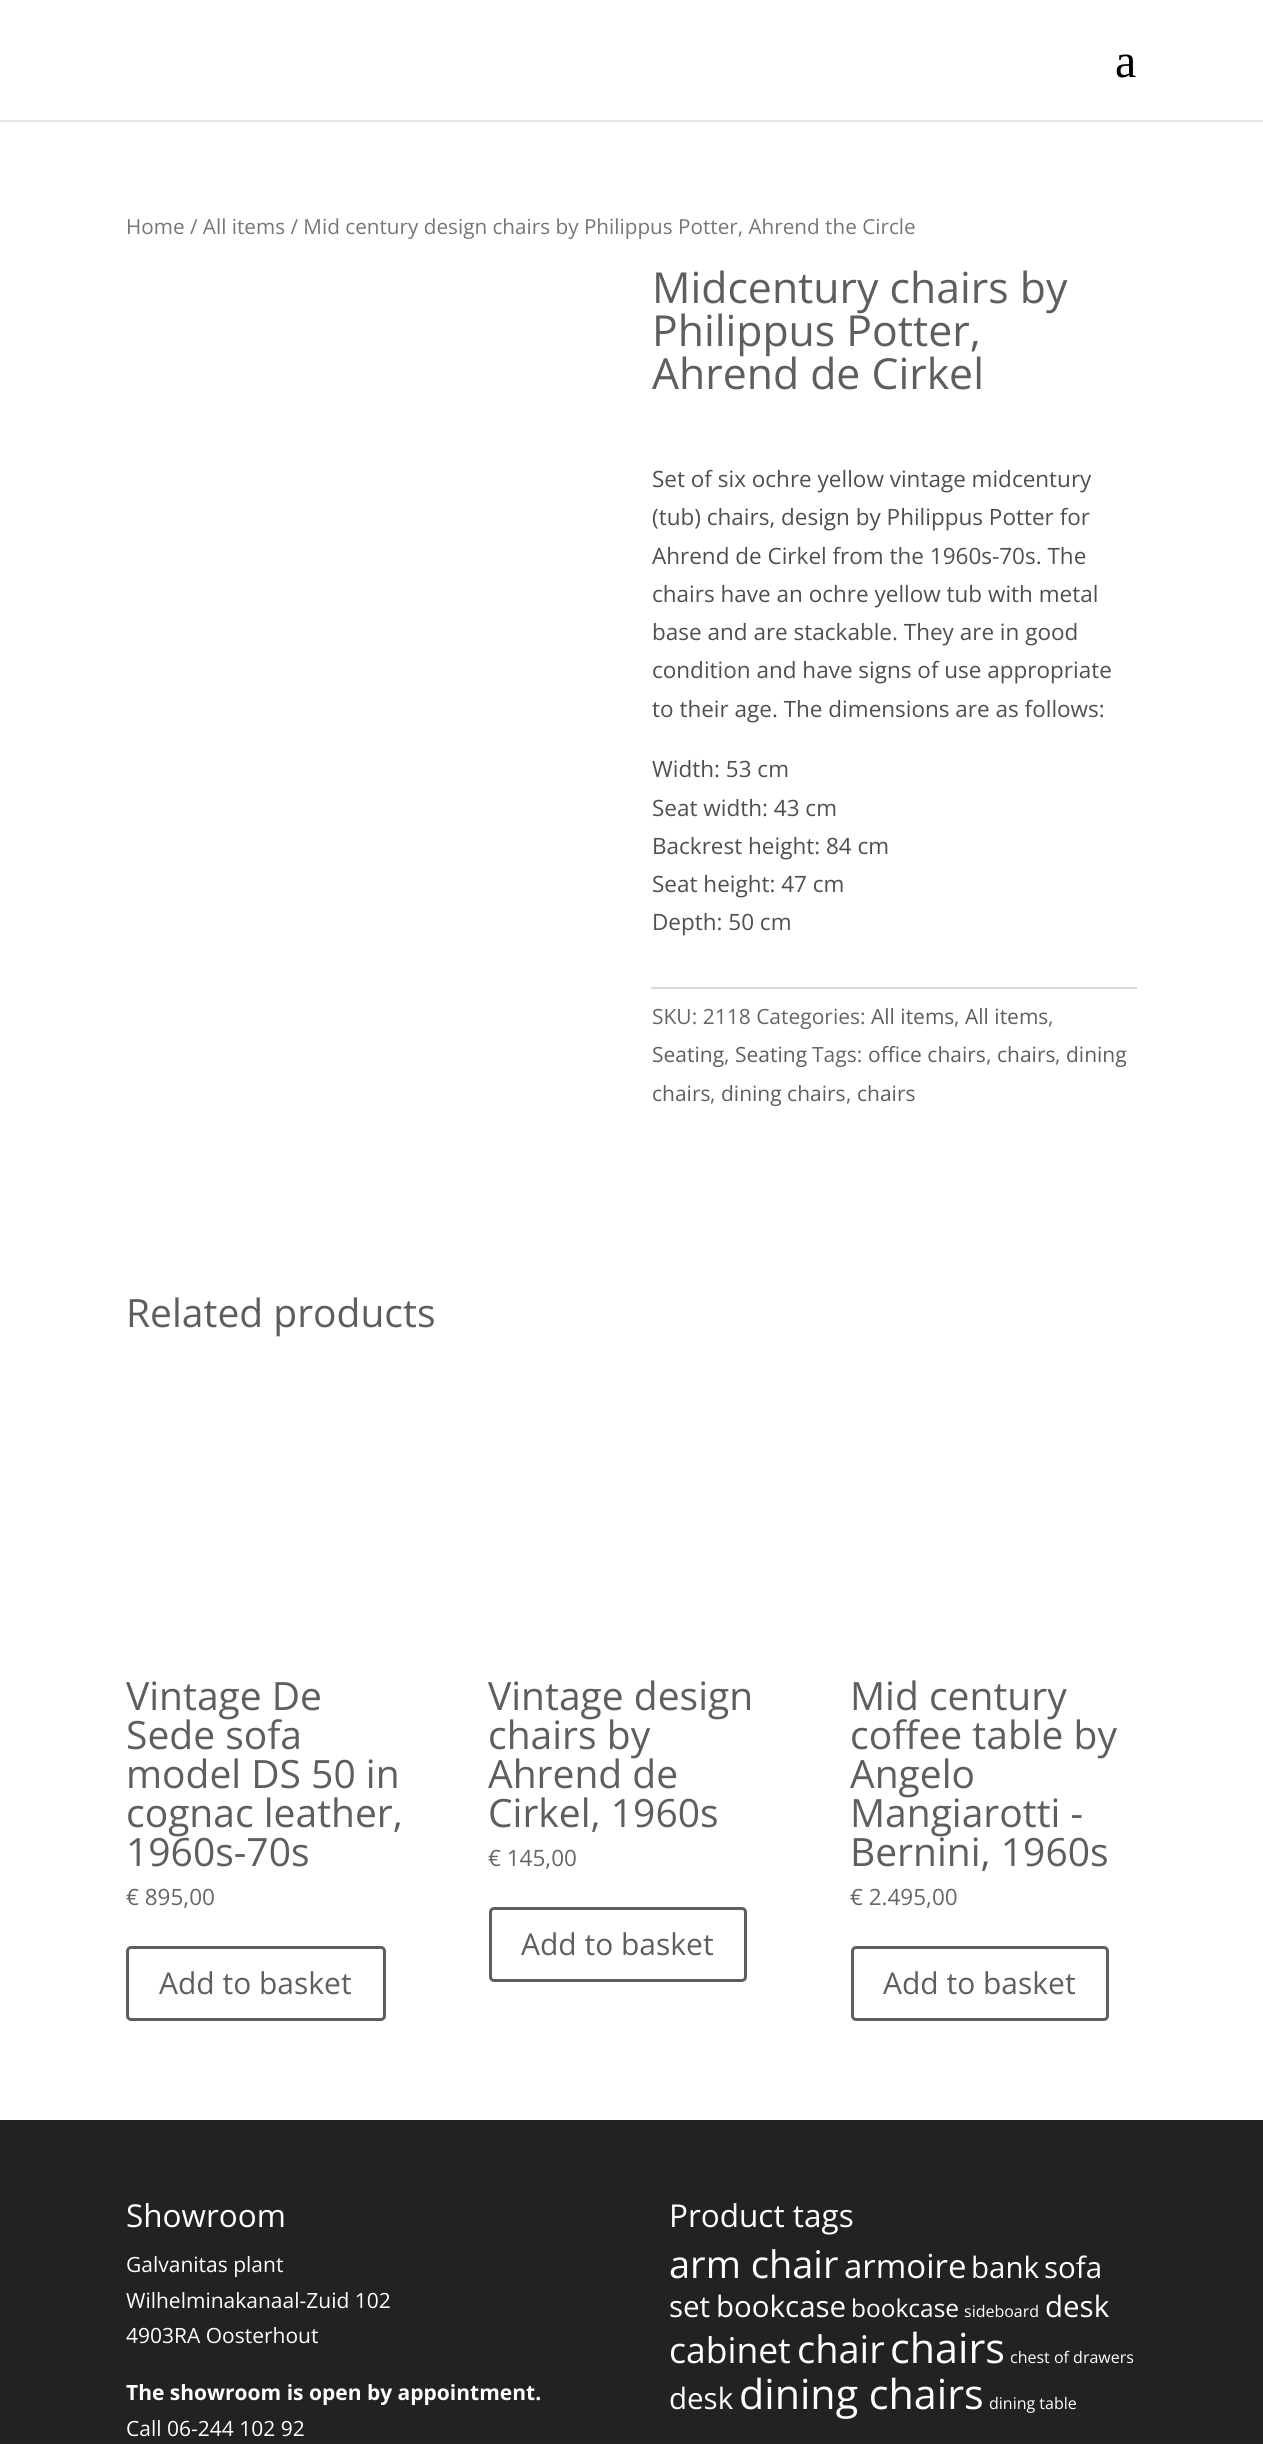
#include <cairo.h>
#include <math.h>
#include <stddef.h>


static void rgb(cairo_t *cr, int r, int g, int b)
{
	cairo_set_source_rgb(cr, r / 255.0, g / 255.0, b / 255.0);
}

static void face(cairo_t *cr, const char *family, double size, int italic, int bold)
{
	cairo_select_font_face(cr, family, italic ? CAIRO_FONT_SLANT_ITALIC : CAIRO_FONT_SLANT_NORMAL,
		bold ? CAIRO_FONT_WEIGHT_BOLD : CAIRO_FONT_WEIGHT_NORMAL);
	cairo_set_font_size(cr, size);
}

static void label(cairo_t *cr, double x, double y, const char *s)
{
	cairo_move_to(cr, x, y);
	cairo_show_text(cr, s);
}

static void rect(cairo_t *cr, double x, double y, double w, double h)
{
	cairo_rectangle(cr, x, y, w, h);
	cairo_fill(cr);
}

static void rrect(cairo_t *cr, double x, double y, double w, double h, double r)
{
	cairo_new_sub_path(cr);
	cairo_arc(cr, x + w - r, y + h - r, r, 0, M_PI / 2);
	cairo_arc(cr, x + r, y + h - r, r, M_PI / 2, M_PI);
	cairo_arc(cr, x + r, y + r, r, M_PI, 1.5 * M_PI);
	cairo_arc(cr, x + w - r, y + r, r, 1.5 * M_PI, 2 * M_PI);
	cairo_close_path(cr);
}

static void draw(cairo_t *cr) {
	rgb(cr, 255, 255, 255);
	cairo_paint(cr);
	rgb(cr, 230, 230, 230);
	rect(cr, 0, 120, 1263, 2);
	face(cr, "Liberation Serif", 48, 0, 0);
	rgb(cr, 0, 0, 0);
	label(cr, 1115, 77, "a");
	face(cr, "Open Sans", 20.7, 0, 0);
	rgb(cr, 118, 118, 118);
	label(cr, 126, 234, "Home / All items / Mid century design chairs by Philippus Potter, Ahrend the Circle");
	face(cr, "Open Sans", 42.75, 0, 0);
	rgb(cr, 94, 94, 94);
	label(cr, 652, 303, "Midcentury chairs by");
	label(cr, 652, 346, "Philippus Potter,");
	label(cr, 652, 389, "Ahrend de Cirkel");
	face(cr, "Open Sans", 22.5, 0, 0);
	rgb(cr, 79, 79, 79);
	label(cr, 652, 487, "Set of six ochre yellow vintage midcentury");
	label(cr, 652, 525, "(tub) chairs, design by Philippus Potter for");
	label(cr, 652, 564, "Ahrend de Cirkel from the 1960s-70s. The");
	label(cr, 652, 602, "chairs have an ochre yellow tub with metal");
	label(cr, 652, 640, "base and are stackable. They are in good");
	label(cr, 652, 678, "condition and have signs of use appropriate");
	label(cr, 652, 717, "to their age. The dimensions are as follows:");
	label(cr, 652, 777, "Width: 53 cm");
	label(cr, 652, 816, "Seat width: 43 cm");
	label(cr, 652, 854, "Backrest height: 84 cm");
	label(cr, 652, 892, "Seat height: 47 cm");
	label(cr, 652, 930, "Depth: 50 cm");
	rgb(cr, 218, 218, 218);
	rect(cr, 651, 987, 486, 2);
	face(cr, "Open Sans", 21, 0, 0);
	rgb(cr, 102, 102, 102);
	label(cr, 652, 1024, "SKU: 2118 Categories:");
	rgb(cr, 94, 94, 94);
	label(cr, 871, 1024, "All items");
	rgb(cr, 102, 102, 102);
	label(cr, 954, 1024, ",");
	rgb(cr, 94, 94, 94);
	label(cr, 965, 1024, "All items");
	rgb(cr, 102, 102, 102);
	label(cr, 1048, 1024, ",");
	rgb(cr, 94, 94, 94);
	label(cr, 652, 1062, "Seating");
	rgb(cr, 102, 102, 102);
	label(cr, 724, 1062, ",");
	rgb(cr, 94, 94, 94);
	label(cr, 735, 1062, "Seating");
	rgb(cr, 102, 102, 102);
	label(cr, 812, 1062, "Tags:");
	rgb(cr, 94, 94, 94);
	label(cr, 868, 1062, "office chairs");
	rgb(cr, 102, 102, 102);
	label(cr, 986, 1062, ",");
	rgb(cr, 94, 94, 94);
	label(cr, 997, 1062, "chairs");
	rgb(cr, 102, 102, 102);
	label(cr, 1055, 1062, ",");
	rgb(cr, 94, 94, 94);
	label(cr, 1066, 1062, "dining");
	label(cr, 652, 1101, "chairs");
	rgb(cr, 102, 102, 102);
	label(cr, 710, 1101, ",");
	rgb(cr, 94, 94, 94);
	label(cr, 721, 1101, "dining chairs");
	rgb(cr, 102, 102, 102);
	label(cr, 846, 1101, ",");
	rgb(cr, 94, 94, 94);
	label(cr, 857, 1101, "chairs");
	face(cr, "Open Sans", 39, 0, 0);
	label(cr, 126, 1327, "Related products");
	label(cr, 126, 1710, "Vintage De");
	label(cr, 126, 1749, "Sede sofa");
	label(cr, 126, 1788, "model DS 50 in");
	label(cr, 126, 1827, "cognac leather,");
	label(cr, 126, 1866, "1960s-70s");
	face(cr, "Open Sans", 22.5, 0, 0);
	rgb(cr, 102, 102, 102);
	label(cr, 126, 1905, "€ 895,00");
	rrect(cr, 127.5, 1947.5, 257, 72, 3.5);
	rgb(cr, 94, 94, 94);
	cairo_set_line_width(cr, 3);
	cairo_stroke(cr);
	face(cr, "Open Sans", 30, 0, 0);
	label(cr, 159, 1994, "Add to basket");
	face(cr, "Open Sans", 39, 0, 0);
	label(cr, 488, 1710, "Vintage design");
	label(cr, 488, 1749, "chairs by");
	label(cr, 488, 1788, "Ahrend de");
	label(cr, 488, 1827, "Cirkel, 1960s");
	face(cr, "Open Sans", 22.5, 0, 0);
	rgb(cr, 102, 102, 102);
	label(cr, 488, 1866, "€ 145,00");
	rrect(cr, 490.5, 1908.5, 255, 72, 3.5);
	rgb(cr, 94, 94, 94);
	cairo_stroke(cr);
	face(cr, "Open Sans", 30, 0, 0);
	label(cr, 521, 1955, "Add to basket");
	face(cr, "Open Sans", 39, 0, 0);
	label(cr, 850, 1710, "Mid century");
	label(cr, 850, 1749, "coffee table by");
	label(cr, 850, 1788, "Angelo");
	label(cr, 850, 1827, "Mangiarotti -");
	label(cr, 850, 1866, "Bernini, 1960s");
	face(cr, "Open Sans", 22.5, 0, 0);
	rgb(cr, 102, 102, 102);
	label(cr, 850, 1905, "€ 2.495,00");
	rrect(cr, 852.5, 1947.5, 255, 72, 3.5);
	rgb(cr, 94, 94, 94);
	cairo_stroke(cr);
	face(cr, "Open Sans", 30, 0, 0);
	label(cr, 883, 1994, "Add to basket");
	rgb(cr, 34, 34, 34);
	rect(cr, 0, 2120, 1263, 324);
	face(cr, "Open Sans", 31.5, 0, 0);
	rgb(cr, 255, 255, 255);
	label(cr, 126, 2227, "Showroom");
	face(cr, "Open Sans", 21, 0, 0);
	label(cr, 126, 2272, "Galvanitas plant");
	label(cr, 126, 2308, "Wilhelminakanaal-Zuid 102");
	label(cr, 126, 2343, "4903RA Oosterhout");
	face(cr, "Open Sans", 21, 0, 1);
	label(cr, 126, 2400, "The showroom is open by appointment.");
	face(cr, "Open Sans", 21, 0, 0);
	label(cr, 126, 2436, "Call 06-244 102 92");
	face(cr, "Open Sans", 31.5, 0, 0);
	label(cr, 669, 2227, "Product tags");
	face(cr, "Open Sans", 38, 0, 0);
	label(cr, 669, 2278, "arm chair");
	face(cr, "Open Sans", 33, 0, 0);
	label(cr, 844, 2278, "armoire");
	face(cr, "Open Sans", 29.5, 0, 0);
	label(cr, 971, 2278, "bank");
	label(cr, 1044, 2278, "sofa");
	label(cr, 669, 2317, "set");
	label(cr, 716, 2317, "bookcase");
	face(cr, "Open Sans", 24.5, 0, 0);
	label(cr, 851, 2317, "bookcase");
	face(cr, "Open Sans", 16, 0, 0);
	label(cr, 964, 2317, "sideboard");
	face(cr, "Open Sans", 29.5, 0, 0);
	label(cr, 1045, 2317, "desk");
	face(cr, "Open Sans", 35.5, 0, 0);
	label(cr, 669, 2363, "cabinet");
	face(cr, "Open Sans", 38, 0, 0);
	label(cr, 797, 2363, "chair");
	face(cr, "Open Sans", 41.25, 0, 0);
	label(cr, 890, 2363, "chairs");
	face(cr, "Open Sans", 16, 0, 0);
	label(cr, 1010, 2363, "chest of drawers");
	face(cr, "Open Sans", 29.5, 0, 0);
	label(cr, 669, 2409, "desk");
	face(cr, "Open Sans", 41.25, 0, 0);
	label(cr, 739, 2409, "dining chairs");
	face(cr, "Open Sans", 16, 0, 0);
	label(cr, 989, 2409, "dining table");
}

int main(void) {
	cairo_surface_t *surface = cairo_image_surface_create(CAIRO_FORMAT_RGB24, 1263, 2444);
	cairo_t *cr = cairo_create(surface);
	cairo_font_options_t *options = cairo_font_options_create();
	cairo_font_options_set_hint_metrics(options, CAIRO_HINT_METRICS_OFF);
	cairo_font_options_set_hint_style(options, CAIRO_HINT_STYLE_NONE);
	cairo_set_font_options(cr, options);
	cairo_set_miter_limit(cr, 4);
	draw(cr);
	cairo_surface_write_to_png(surface, "render.png");
	cairo_font_options_destroy(options);
	cairo_destroy(cr);
	cairo_surface_destroy(surface);
	return 0;
}
